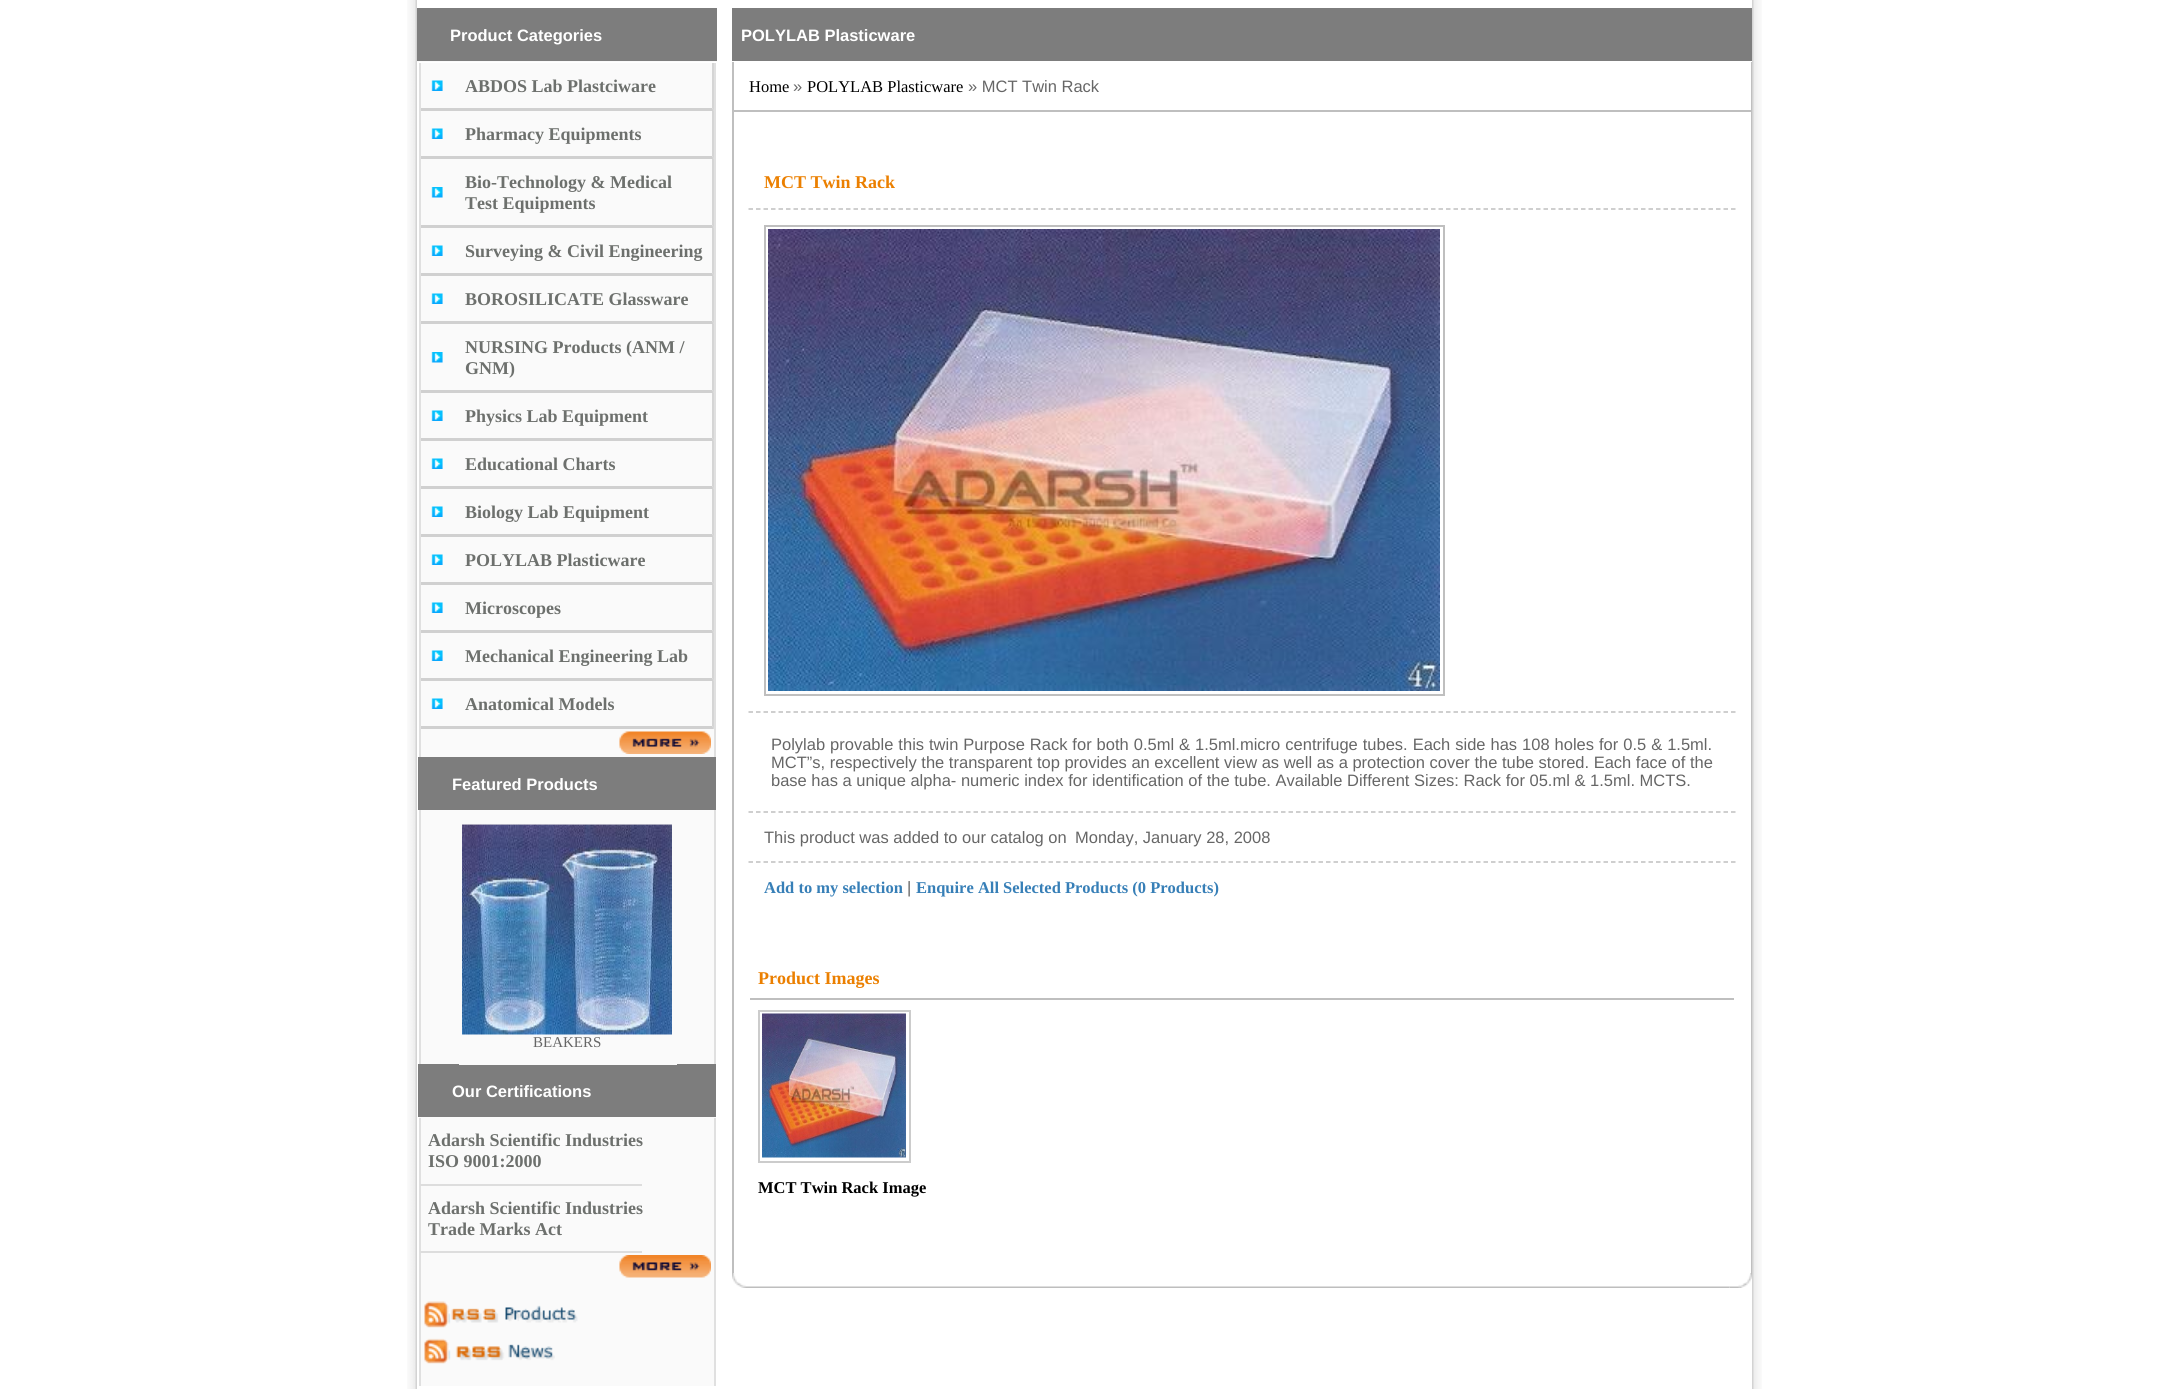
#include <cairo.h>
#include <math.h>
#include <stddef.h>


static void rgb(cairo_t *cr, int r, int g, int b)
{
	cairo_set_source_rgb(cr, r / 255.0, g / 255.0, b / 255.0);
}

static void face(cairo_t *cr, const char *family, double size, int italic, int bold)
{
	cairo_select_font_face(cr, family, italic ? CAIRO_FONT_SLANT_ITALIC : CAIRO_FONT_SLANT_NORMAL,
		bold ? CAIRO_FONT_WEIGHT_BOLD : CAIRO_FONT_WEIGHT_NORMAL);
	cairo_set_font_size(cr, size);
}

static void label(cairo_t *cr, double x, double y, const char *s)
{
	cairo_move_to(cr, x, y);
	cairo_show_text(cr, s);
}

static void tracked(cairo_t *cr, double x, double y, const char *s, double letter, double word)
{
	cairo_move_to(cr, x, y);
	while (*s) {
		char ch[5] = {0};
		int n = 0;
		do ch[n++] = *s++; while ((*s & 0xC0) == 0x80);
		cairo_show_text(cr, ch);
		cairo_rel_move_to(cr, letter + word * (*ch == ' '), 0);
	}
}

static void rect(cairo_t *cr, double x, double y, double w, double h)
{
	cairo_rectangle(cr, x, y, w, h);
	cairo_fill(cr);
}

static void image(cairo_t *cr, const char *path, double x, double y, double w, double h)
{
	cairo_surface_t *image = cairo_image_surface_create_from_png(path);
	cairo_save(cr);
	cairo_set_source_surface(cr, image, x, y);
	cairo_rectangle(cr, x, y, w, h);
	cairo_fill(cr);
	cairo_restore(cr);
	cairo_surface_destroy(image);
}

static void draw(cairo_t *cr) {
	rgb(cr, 255, 255, 255);
	cairo_paint(cr);
	image(cr, "image0.png", 407, 0, 10, 1389);
	rgb(cr, 250, 250, 250);
	rect(cr, 417, 61, 300, 1);
	rgb(cr, 125, 125, 125);
	rect(cr, 417, 8, 300, 53);
	face(cr, "Liberation Sans", 16.5, 0, 1);
	rgb(cr, 255, 255, 255);
	label(cr, 450, 41, "Product Categories");
	rgb(cr, 250, 250, 250);
	rect(cr, 421, 63, 293, 694);
	rgb(cr, 213, 213, 213);
	cairo_new_path(cr);
	cairo_move_to(cr, 714, 63);
	cairo_line_to(cr, 714, 111);
	cairo_line_to(cr, 712, 108);
	cairo_line_to(cr, 712, 63);
	cairo_close_path(cr);
	cairo_fill(cr);
	rgb(cr, 208, 208, 208);
	cairo_new_path(cr);
	cairo_move_to(cr, 714, 111);
	cairo_line_to(cr, 420, 111);
	cairo_line_to(cr, 420, 108);
	cairo_line_to(cr, 712, 108);
	cairo_close_path(cr);
	cairo_fill(cr);
	image(cr, "image1.png", 431, 80, 12, 11);
	face(cr, "Liberation Serif", 18, 0, 1);
	rgb(cr, 109, 112, 109);
	label(cr, 465, 92, "ABDOS Lab Plastciware");
	rgb(cr, 213, 213, 213);
	cairo_new_path(cr);
	cairo_move_to(cr, 714, 111);
	cairo_line_to(cr, 714, 159);
	cairo_line_to(cr, 712, 156);
	cairo_line_to(cr, 712, 111);
	cairo_close_path(cr);
	cairo_fill(cr);
	rgb(cr, 208, 208, 208);
	cairo_new_path(cr);
	cairo_move_to(cr, 714, 159);
	cairo_line_to(cr, 420, 159);
	cairo_line_to(cr, 420, 156);
	cairo_line_to(cr, 712, 156);
	cairo_close_path(cr);
	cairo_fill(cr);
	image(cr, "image1.png", 431, 128, 12, 11);
	rgb(cr, 109, 112, 109);
	label(cr, 465, 140, "Pharmacy Equipments");
	rgb(cr, 213, 213, 213);
	cairo_new_path(cr);
	cairo_move_to(cr, 714, 159);
	cairo_line_to(cr, 714, 228);
	cairo_line_to(cr, 712, 225);
	cairo_line_to(cr, 712, 159);
	cairo_close_path(cr);
	cairo_fill(cr);
	rgb(cr, 208, 208, 208);
	cairo_new_path(cr);
	cairo_move_to(cr, 714, 228);
	cairo_line_to(cr, 420, 228);
	cairo_line_to(cr, 420, 225);
	cairo_line_to(cr, 712, 225);
	cairo_close_path(cr);
	cairo_fill(cr);
	image(cr, "image2.png", 431, 187, 12, 11);
	rgb(cr, 109, 112, 109);
	label(cr, 465, 188, "Bio-Technology & Medical");
	label(cr, 465, 209, "Test Equipments");
	rgb(cr, 213, 213, 213);
	cairo_new_path(cr);
	cairo_move_to(cr, 714, 228);
	cairo_line_to(cr, 714, 276);
	cairo_line_to(cr, 712, 273);
	cairo_line_to(cr, 712, 228);
	cairo_close_path(cr);
	cairo_fill(cr);
	rgb(cr, 208, 208, 208);
	cairo_new_path(cr);
	cairo_move_to(cr, 714, 276);
	cairo_line_to(cr, 420, 276);
	cairo_line_to(cr, 420, 273);
	cairo_line_to(cr, 712, 273);
	cairo_close_path(cr);
	cairo_fill(cr);
	image(cr, "image1.png", 431, 245, 12, 11);
	rgb(cr, 109, 112, 109);
	label(cr, 465, 257, "Surveying & Civil Engineering");
	rgb(cr, 213, 213, 213);
	cairo_new_path(cr);
	cairo_move_to(cr, 714, 276);
	cairo_line_to(cr, 714, 324);
	cairo_line_to(cr, 712, 321);
	cairo_line_to(cr, 712, 276);
	cairo_close_path(cr);
	cairo_fill(cr);
	rgb(cr, 208, 208, 208);
	cairo_new_path(cr);
	cairo_move_to(cr, 714, 324);
	cairo_line_to(cr, 420, 324);
	cairo_line_to(cr, 420, 321);
	cairo_line_to(cr, 712, 321);
	cairo_close_path(cr);
	cairo_fill(cr);
	image(cr, "image1.png", 431, 293, 12, 11);
	rgb(cr, 109, 112, 109);
	label(cr, 465, 305, "BOROSILICATE Glassware");
	rgb(cr, 213, 213, 213);
	cairo_new_path(cr);
	cairo_move_to(cr, 714, 324);
	cairo_line_to(cr, 714, 393);
	cairo_line_to(cr, 712, 390);
	cairo_line_to(cr, 712, 324);
	cairo_close_path(cr);
	cairo_fill(cr);
	rgb(cr, 208, 208, 208);
	cairo_new_path(cr);
	cairo_move_to(cr, 714, 393);
	cairo_line_to(cr, 420, 393);
	cairo_line_to(cr, 420, 390);
	cairo_line_to(cr, 712, 390);
	cairo_close_path(cr);
	cairo_fill(cr);
	image(cr, "image2.png", 431, 352, 12, 11);
	rgb(cr, 109, 112, 109);
	label(cr, 465, 353, "NURSING Products (ANM /");
	label(cr, 465, 374, "GNM)");
	rgb(cr, 213, 213, 213);
	cairo_new_path(cr);
	cairo_move_to(cr, 714, 393);
	cairo_line_to(cr, 714, 441);
	cairo_line_to(cr, 712, 438);
	cairo_line_to(cr, 712, 393);
	cairo_close_path(cr);
	cairo_fill(cr);
	rgb(cr, 208, 208, 208);
	cairo_new_path(cr);
	cairo_move_to(cr, 714, 441);
	cairo_line_to(cr, 420, 441);
	cairo_line_to(cr, 420, 438);
	cairo_line_to(cr, 712, 438);
	cairo_close_path(cr);
	cairo_fill(cr);
	image(cr, "image1.png", 431, 410, 12, 11);
	rgb(cr, 109, 112, 109);
	label(cr, 465, 422, "Physics Lab Equipment");
	rgb(cr, 213, 213, 213);
	cairo_new_path(cr);
	cairo_move_to(cr, 714, 441);
	cairo_line_to(cr, 714, 489);
	cairo_line_to(cr, 712, 486);
	cairo_line_to(cr, 712, 441);
	cairo_close_path(cr);
	cairo_fill(cr);
	rgb(cr, 208, 208, 208);
	cairo_new_path(cr);
	cairo_move_to(cr, 714, 489);
	cairo_line_to(cr, 420, 489);
	cairo_line_to(cr, 420, 486);
	cairo_line_to(cr, 712, 486);
	cairo_close_path(cr);
	cairo_fill(cr);
	image(cr, "image1.png", 431, 458, 12, 11);
	rgb(cr, 109, 112, 109);
	label(cr, 465, 470, "Educational Charts");
	rgb(cr, 213, 213, 213);
	cairo_new_path(cr);
	cairo_move_to(cr, 714, 489);
	cairo_line_to(cr, 714, 537);
	cairo_line_to(cr, 712, 534);
	cairo_line_to(cr, 712, 489);
	cairo_close_path(cr);
	cairo_fill(cr);
	rgb(cr, 208, 208, 208);
	cairo_new_path(cr);
	cairo_move_to(cr, 714, 537);
	cairo_line_to(cr, 420, 537);
	cairo_line_to(cr, 420, 534);
	cairo_line_to(cr, 712, 534);
	cairo_close_path(cr);
	cairo_fill(cr);
	image(cr, "image1.png", 431, 506, 12, 11);
	rgb(cr, 109, 112, 109);
	label(cr, 465, 518, "Biology Lab Equipment");
	rgb(cr, 213, 213, 213);
	cairo_new_path(cr);
	cairo_move_to(cr, 714, 537);
	cairo_line_to(cr, 714, 585);
	cairo_line_to(cr, 712, 582);
	cairo_line_to(cr, 712, 537);
	cairo_close_path(cr);
	cairo_fill(cr);
	rgb(cr, 208, 208, 208);
	cairo_new_path(cr);
	cairo_move_to(cr, 714, 585);
	cairo_line_to(cr, 420, 585);
	cairo_line_to(cr, 420, 582);
	cairo_line_to(cr, 712, 582);
	cairo_close_path(cr);
	cairo_fill(cr);
	image(cr, "image1.png", 431, 554, 12, 11);
	rgb(cr, 109, 112, 109);
	label(cr, 465, 566, "POLYLAB Plasticware");
	rgb(cr, 213, 213, 213);
	cairo_new_path(cr);
	cairo_move_to(cr, 714, 585);
	cairo_line_to(cr, 714, 633);
	cairo_line_to(cr, 712, 630);
	cairo_line_to(cr, 712, 585);
	cairo_close_path(cr);
	cairo_fill(cr);
	rgb(cr, 208, 208, 208);
	cairo_new_path(cr);
	cairo_move_to(cr, 714, 633);
	cairo_line_to(cr, 420, 633);
	cairo_line_to(cr, 420, 630);
	cairo_line_to(cr, 712, 630);
	cairo_close_path(cr);
	cairo_fill(cr);
	image(cr, "image1.png", 431, 602, 12, 11);
	rgb(cr, 109, 112, 109);
	label(cr, 465, 614, "Microscopes");
	rgb(cr, 213, 213, 213);
	cairo_new_path(cr);
	cairo_move_to(cr, 714, 633);
	cairo_line_to(cr, 714, 681);
	cairo_line_to(cr, 712, 678);
	cairo_line_to(cr, 712, 633);
	cairo_close_path(cr);
	cairo_fill(cr);
	rgb(cr, 208, 208, 208);
	cairo_new_path(cr);
	cairo_move_to(cr, 714, 681);
	cairo_line_to(cr, 420, 681);
	cairo_line_to(cr, 420, 678);
	cairo_line_to(cr, 712, 678);
	cairo_close_path(cr);
	cairo_fill(cr);
	image(cr, "image1.png", 431, 650, 12, 11);
	rgb(cr, 109, 112, 109);
	label(cr, 465, 662, "Mechanical Engineering Lab");
	rgb(cr, 224, 224, 224);
	rect(cr, 714, 63, 2, 695);
	rgb(cr, 213, 213, 213);
	cairo_new_path(cr);
	cairo_move_to(cr, 714, 681);
	cairo_line_to(cr, 714, 729);
	cairo_line_to(cr, 712, 726);
	cairo_line_to(cr, 712, 681);
	cairo_close_path(cr);
	cairo_fill(cr);
	rgb(cr, 208, 208, 208);
	cairo_new_path(cr);
	cairo_move_to(cr, 714, 729);
	cairo_line_to(cr, 420, 729);
	cairo_line_to(cr, 420, 726);
	cairo_line_to(cr, 712, 726);
	cairo_close_path(cr);
	cairo_fill(cr);
	rgb(cr, 224, 224, 224);
	rect(cr, 419, 63, 2, 695);
	image(cr, "image1.png", 431, 698, 12, 11);
	rgb(cr, 109, 112, 109);
	label(cr, 465, 710, "Anatomical Models");
	image(cr, "image3.png", 619, 731, 92, 23);
	rgb(cr, 250, 250, 250);
	rect(cr, 419, 810, 297, 576);
	rgb(cr, 125, 125, 125);
	rect(cr, 418, 757, 298, 53);
	face(cr, "Liberation Sans", 16.5, 0, 1);
	rgb(cr, 255, 255, 255);
	label(cr, 452, 790, "Featured Products");
	rgb(cr, 224, 224, 224);
	rect(cr, 714, 810, 2, 255);
	rect(cr, 419, 810, 2, 255);
	image(cr, "image4.png", 462, 824, 210, 1);
	rgb(cr, 125, 125, 125);
	rect(cr, 418, 1064, 298, 53);
	rgb(cr, 250, 250, 250);
	rect(cr, 459, 1064, 218, 1);
	image(cr, "image5.png", 462, 824, 210, 211);
	face(cr, "Liberation Serif", 15, 0, 0);
	rgb(cr, 102, 102, 102);
	label(cr, 533, 1047, "BEAKERS");
	face(cr, "Liberation Sans", 16.5, 0, 1);
	rgb(cr, 255, 255, 255);
	label(cr, 452, 1097, "Our Certifications");
	rgb(cr, 224, 224, 224);
	rect(cr, 714, 1118, 2, 268);
	rect(cr, 419, 1118, 2, 268);
	rgb(cr, 221, 221, 221);
	rect(cr, 420, 1184, 222, 2);
	face(cr, "Liberation Serif", 18, 0, 1);
	rgb(cr, 109, 112, 109);
	label(cr, 428, 1146, "Adarsh Scientific Industries");
	label(cr, 428, 1167, "ISO 9001:2000");
	rgb(cr, 221, 221, 221);
	rect(cr, 420, 1251, 222, 2);
	rgb(cr, 109, 112, 109);
	label(cr, 428, 1214, "Adarsh Scientific Industries");
	label(cr, 428, 1235, "Trade Marks Act");
	image(cr, "image6.png", 619, 1255, 92, 23);
	image(cr, "image7.png", 424, 1301, 154, 27);
	image(cr, "image8.png", 424, 1338, 131, 26);
	rgb(cr, 125, 125, 125);
	rect(cr, 732, 8, 1020, 53);
	face(cr, "Liberation Sans", 16.5, 0, 1);
	rgb(cr, 255, 255, 255);
	label(cr, 741, 41, "POLYLAB Plasticware");
	rgb(cr, 191, 191, 191);
	rect(cr, 1751, 62, 1, 1212);
	rect(cr, 732, 62, 2, 1212);
	rect(cr, 734, 110, 1017, 2);
	face(cr, "Liberation Serif", 16.5, 0, 0);
	rgb(cr, 0, 0, 0);
	label(cr, 749, 92, "Home");
	face(cr, "Liberation Sans", 16.5, 0, 0);
	rgb(cr, 102, 102, 102);
	label(cr, 793, 92, "»");
	face(cr, "Liberation Serif", 16.5, 0, 0);
	rgb(cr, 0, 0, 0);
	label(cr, 807, 92, "POLYLAB Plasticware");
	face(cr, "Liberation Sans", 16.5, 0, 0);
	rgb(cr, 102, 102, 102);
	label(cr, 968, 92, "» MCT Twin Rack");
	cairo_new_path(cr);
	cairo_move_to(cr, 748.5, 209);
	cairo_line_to(cr, 1735.5, 209);
	rgb(cr, 191, 191, 191);
	cairo_set_line_width(cr, 1.5);
	cairo_set_dash(cr, (double[]){4.5, 3}, 2, 0);
	cairo_stroke(cr);
	face(cr, "Liberation Serif", 18, 0, 1);
	rgb(cr, 235, 127, 0);
	label(cr, 764, 188, "MCT Twin Rack");
	cairo_new_path(cr);
	cairo_move_to(cr, 748.5, 712);
	cairo_line_to(cr, 1735.5, 712);
	rgb(cr, 191, 191, 191);
	cairo_stroke(cr);
	cairo_rectangle(cr, 765, 226, 679, 469);
	cairo_set_line_width(cr, 2);
	cairo_set_dash(cr, NULL, 0, 0);
	cairo_stroke(cr);
	image(cr, "image9.png", 768, 229, 672, 462);
	cairo_new_path(cr);
	cairo_move_to(cr, 748.5, 812);
	cairo_line_to(cr, 1735.5, 812);
	cairo_set_line_width(cr, 1.5);
	cairo_set_dash(cr, (double[]){4.5, 3}, 2, 0);
	cairo_stroke(cr);
	face(cr, "Liberation Sans", 16.5, 0, 0);
	rgb(cr, 102, 102, 102);
	tracked(cr, 771, 750, "Polylab provable this twin Purpose Rack for both 0.5ml & 1.5ml.micro centrifuge tubes. Each side has 108 holes for 0.5 & 1.5ml.", 0, 0.4);
	label(cr, 771, 768, "MCT”s, respectively the transparent top provides an excellent view as well as a protection cover the tube stored. Each face of the");
	label(cr, 771, 786, "base has a unique alpha- numeric index for identification of the tube. Available Different Sizes: Rack for 05.ml & 1.5ml. MCTS.");
	cairo_new_path(cr);
	cairo_move_to(cr, 748.5, 862);
	cairo_line_to(cr, 1735.5, 862);
	rgb(cr, 191, 191, 191);
	cairo_stroke(cr);
	rgb(cr, 102, 102, 102);
	label(cr, 764, 843, "This product was added to our catalog on");
	label(cr, 1075, 843, "Monday, January 28, 2008");
	face(cr, "Liberation Serif", 16.5, 0, 1);
	rgb(cr, 55, 127, 183);
	label(cr, 764, 893, "Add to my selection");
	face(cr, "Liberation Sans", 16.5, 0, 0);
	rgb(cr, 102, 102, 102);
	label(cr, 907, 893, "|");
	face(cr, "Liberation Serif", 16.5, 0, 1);
	rgb(cr, 55, 127, 183);
	label(cr, 916, 893, "Enquire All Selected Products (0 Products)");
	rgb(cr, 191, 191, 191);
	rect(cr, 750, 998, 984, 2);
	face(cr, "Liberation Serif", 18, 0, 1);
	rgb(cr, 235, 127, 0);
	label(cr, 758, 984, "Product Images");
	cairo_rectangle(cr, 759, 1011, 151, 151);
	rgb(cr, 204, 204, 204);
	cairo_set_line_width(cr, 2);
	cairo_set_dash(cr, NULL, 0, 0);
	cairo_stroke(cr);
	image(cr, "image10.png", 762, 1013, 144, 145);
	face(cr, "Liberation Serif", 16.5, 0, 1);
	rgb(cr, 0, 0, 0);
	label(cr, 758, 1193, "MCT Twin Rack Image");
	image(cr, "image11.png", 732, 1273, 998, 15);
	image(cr, "image12.png", 1729, 1273, 23, 15);
	image(cr, "image13.png", 1752, 0, 10, 1389);
}

int main(void) {
	cairo_surface_t *surface = cairo_image_surface_create(CAIRO_FORMAT_RGB24, 2168, 1389);
	cairo_t *cr = cairo_create(surface);
	cairo_font_options_t *options = cairo_font_options_create();
	cairo_font_options_set_hint_metrics(options, CAIRO_HINT_METRICS_OFF);
	cairo_font_options_set_hint_style(options, CAIRO_HINT_STYLE_NONE);
	cairo_set_font_options(cr, options);
	cairo_set_miter_limit(cr, 4);
	draw(cr);
	cairo_surface_write_to_png(surface, "render.png");
	cairo_font_options_destroy(options);
	cairo_destroy(cr);
	cairo_surface_destroy(surface);
	return 0;
}
